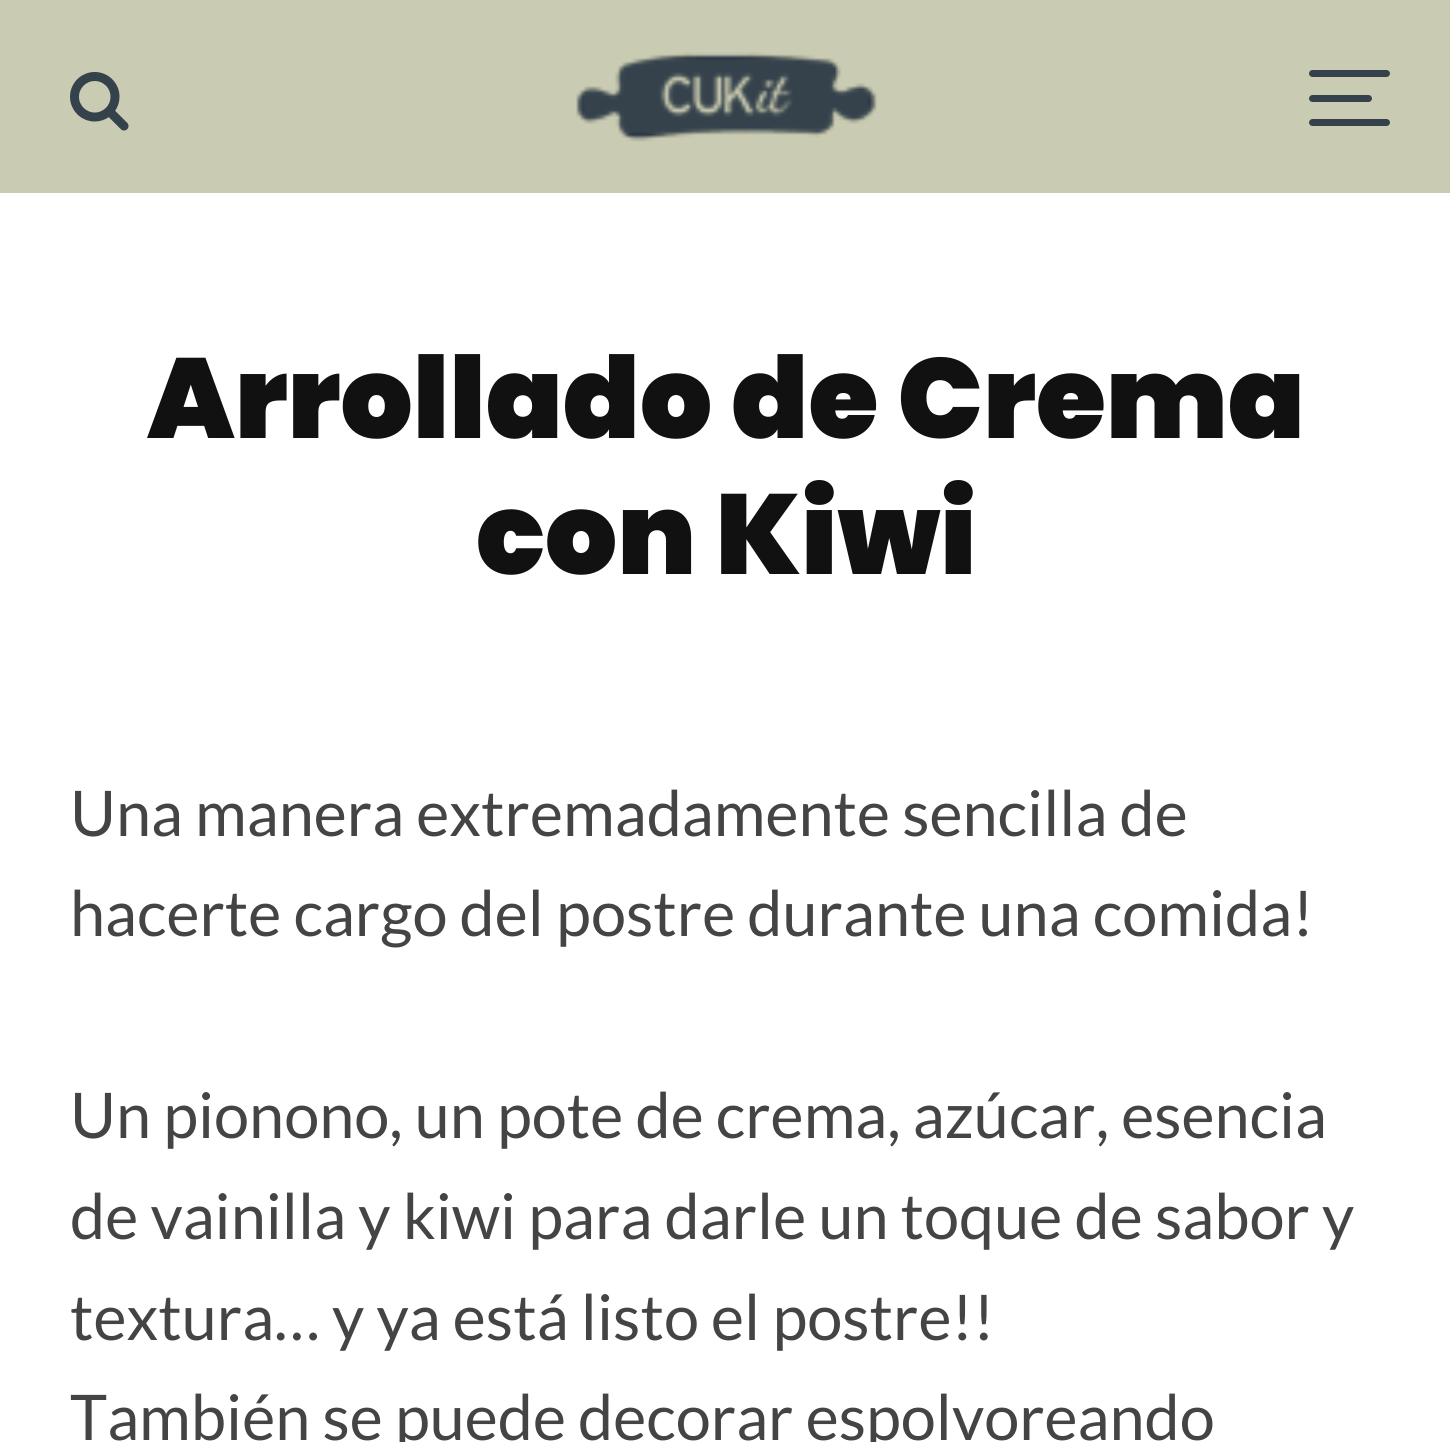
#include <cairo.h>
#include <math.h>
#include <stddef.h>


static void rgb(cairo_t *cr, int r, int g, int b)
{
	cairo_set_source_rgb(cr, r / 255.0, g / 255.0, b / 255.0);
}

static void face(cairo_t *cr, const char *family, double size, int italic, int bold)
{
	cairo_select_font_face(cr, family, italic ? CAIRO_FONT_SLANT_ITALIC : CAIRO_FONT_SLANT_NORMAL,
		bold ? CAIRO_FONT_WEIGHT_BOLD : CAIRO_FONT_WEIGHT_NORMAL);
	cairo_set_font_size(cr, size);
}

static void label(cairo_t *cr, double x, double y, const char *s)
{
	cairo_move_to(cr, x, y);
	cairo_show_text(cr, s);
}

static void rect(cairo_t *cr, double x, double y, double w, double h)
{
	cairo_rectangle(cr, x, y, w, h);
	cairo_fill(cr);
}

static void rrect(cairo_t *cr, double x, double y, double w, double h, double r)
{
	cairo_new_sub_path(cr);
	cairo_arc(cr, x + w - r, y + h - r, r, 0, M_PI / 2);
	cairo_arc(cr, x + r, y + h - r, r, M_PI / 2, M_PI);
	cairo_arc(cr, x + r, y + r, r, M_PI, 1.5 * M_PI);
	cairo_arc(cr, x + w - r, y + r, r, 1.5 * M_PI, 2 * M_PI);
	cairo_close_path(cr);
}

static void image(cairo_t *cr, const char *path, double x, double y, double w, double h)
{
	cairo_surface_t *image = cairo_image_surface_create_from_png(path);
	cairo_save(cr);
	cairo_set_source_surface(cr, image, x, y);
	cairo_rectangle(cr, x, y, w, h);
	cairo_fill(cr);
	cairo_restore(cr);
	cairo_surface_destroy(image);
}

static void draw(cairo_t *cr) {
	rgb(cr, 255, 255, 255);
	cairo_paint(cr);
	rgb(cr, 201, 203, 178);
	rect(cr, 0, 0, 1450, 193);
	image(cr, "image0.png", 70, 72, 59, 59);
	image(cr, "image1.png", 575, 52, 302, 90);
	rgb(cr, 53, 66, 76);
	rrect(cr, 1309, 95, 63, 7, 3.5);
	cairo_fill(cr);
	rrect(cr, 1309, 70, 81, 7, 3.5);
	cairo_fill(cr);
	rrect(cr, 1309, 119, 81, 7, 3.5);
	cairo_fill(cr);
	face(cr, "Poppins Black", 113.4, 0, 0);
	rgb(cr, 17, 17, 17);
	label(cr, 147, 438, "Arrollado de Crema");
	label(cr, 476, 574, "con Kiwi");
	face(cr, "Lato", 63, 0, 0);
	rgb(cr, 68, 68, 68);
	label(cr, 70, 836, "Una manera extremadamente sencilla de");
	label(cr, 70, 936, "hacerte cargo del postre durante una comida!");
	label(cr, 70, 1138, "Un pionono, un pote de crema, azúcar, esencia");
	label(cr, 70, 1239, "de vainilla y kiwi para darle un toque de sabor y");
	label(cr, 70, 1340, "textura… y ya está listo el postre!!");
	label(cr, 70, 1440, "También se puede decorar espolvoreando");
}

int main(void) {
	cairo_surface_t *surface = cairo_image_surface_create(CAIRO_FORMAT_RGB24, 1450, 1442);
	cairo_t *cr = cairo_create(surface);
	cairo_font_options_t *options = cairo_font_options_create();
	cairo_font_options_set_hint_metrics(options, CAIRO_HINT_METRICS_OFF);
	cairo_font_options_set_hint_style(options, CAIRO_HINT_STYLE_NONE);
	cairo_set_font_options(cr, options);
	cairo_set_miter_limit(cr, 4);
	draw(cr);
	cairo_surface_write_to_png(surface, "render.png");
	cairo_font_options_destroy(options);
	cairo_destroy(cr);
	cairo_surface_destroy(surface);
	return 0;
}
